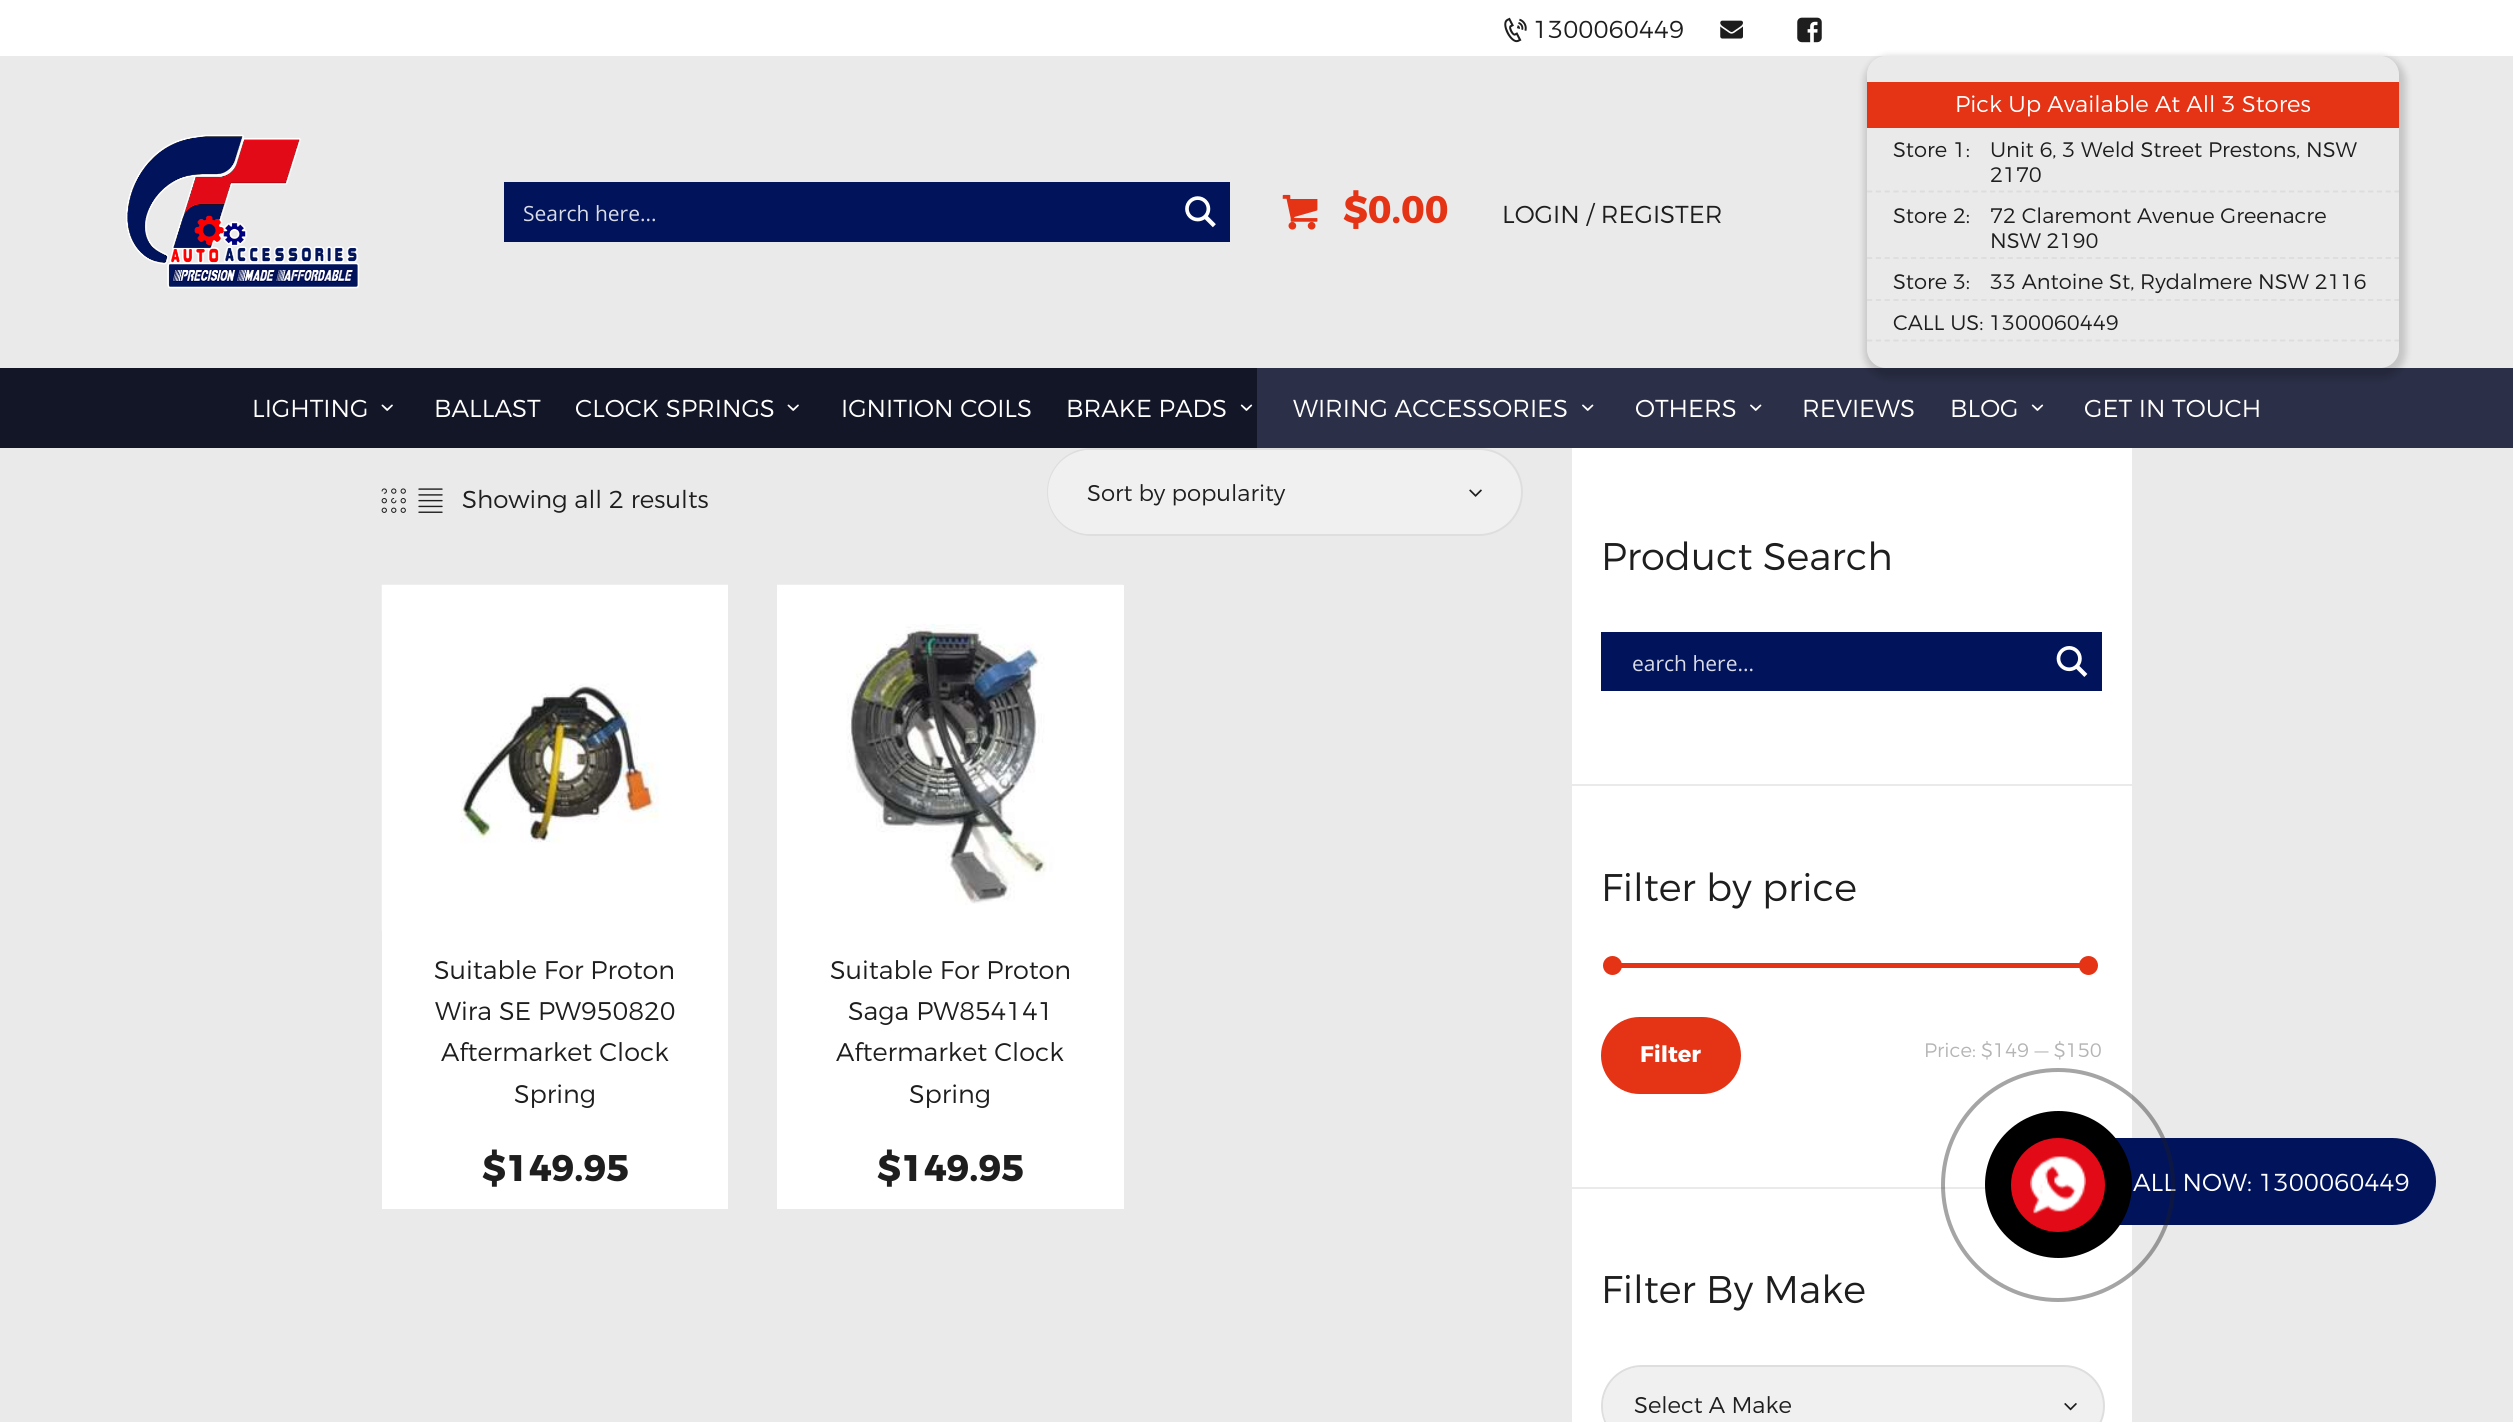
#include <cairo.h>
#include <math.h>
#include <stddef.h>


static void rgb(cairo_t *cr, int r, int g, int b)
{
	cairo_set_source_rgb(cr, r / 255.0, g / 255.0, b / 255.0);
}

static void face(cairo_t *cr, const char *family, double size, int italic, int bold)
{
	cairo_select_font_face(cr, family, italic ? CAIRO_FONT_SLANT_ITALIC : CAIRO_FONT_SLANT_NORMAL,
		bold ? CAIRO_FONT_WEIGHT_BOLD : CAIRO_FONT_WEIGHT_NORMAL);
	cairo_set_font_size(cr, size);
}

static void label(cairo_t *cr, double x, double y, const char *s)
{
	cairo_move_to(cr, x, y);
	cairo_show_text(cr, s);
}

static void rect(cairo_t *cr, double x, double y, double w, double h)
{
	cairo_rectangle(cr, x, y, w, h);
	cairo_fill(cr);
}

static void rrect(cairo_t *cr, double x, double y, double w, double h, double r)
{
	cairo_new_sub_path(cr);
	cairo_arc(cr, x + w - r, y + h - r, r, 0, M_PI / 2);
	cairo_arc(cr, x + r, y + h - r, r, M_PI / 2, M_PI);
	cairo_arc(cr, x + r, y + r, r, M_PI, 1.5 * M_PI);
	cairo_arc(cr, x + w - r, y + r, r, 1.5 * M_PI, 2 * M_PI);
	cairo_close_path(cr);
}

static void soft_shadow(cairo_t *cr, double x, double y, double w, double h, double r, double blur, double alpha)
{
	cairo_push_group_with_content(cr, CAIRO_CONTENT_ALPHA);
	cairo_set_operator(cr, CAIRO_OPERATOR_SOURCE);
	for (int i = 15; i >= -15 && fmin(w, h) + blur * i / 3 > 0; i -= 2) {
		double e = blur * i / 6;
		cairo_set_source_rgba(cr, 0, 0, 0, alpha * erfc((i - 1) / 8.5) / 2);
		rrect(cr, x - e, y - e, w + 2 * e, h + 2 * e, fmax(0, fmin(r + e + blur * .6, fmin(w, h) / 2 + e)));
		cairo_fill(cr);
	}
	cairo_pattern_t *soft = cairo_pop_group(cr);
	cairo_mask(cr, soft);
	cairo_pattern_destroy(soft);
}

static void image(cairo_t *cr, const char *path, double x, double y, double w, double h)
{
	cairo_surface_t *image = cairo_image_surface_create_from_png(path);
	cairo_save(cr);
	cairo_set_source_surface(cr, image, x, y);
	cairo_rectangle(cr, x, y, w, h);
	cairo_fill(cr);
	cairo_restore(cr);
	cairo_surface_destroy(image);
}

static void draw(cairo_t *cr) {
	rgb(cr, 234, 234, 234);
	cairo_paint(cr);
	rgb(cr, 255, 255, 255);
	rect(cr, 0, 0, 2513, 56);
	image(cr, "image0.png", 1504, 17, 23, 26);
	face(cr, "Montserrat Light", 24.5, 0, 0);
	rgb(cr, 30, 30, 30);
	label(cr, 1533, 38, "1300060449");
	image(cr, "image1.png", 1720, 20, 23, 19);
	image(cr, "image2.png", 1797, 17, 25, 26);
	image(cr, "image3.png", 126, 134, 234, 155);
	rgb(cr, 1, 19, 91);
	rect(cr, 504, 182, 726, 60);
	face(cr, "Open Sans", 21, 0, 0);
	rgb(cr, 217, 220, 230);
	label(cr, 523, 221, "Search here...");
	image(cr, "image4.png", 1185, 196, 31, 32);
	image(cr, "image5.png", 1282, 194, 36, 36);
	face(cr, "Montserrat", 38.5, 0, 1);
	rgb(cr, 228, 51, 21);
	label(cr, 1343, 223, "$0.00");
	face(cr, "Montserrat Light", 24.5, 0, 0);
	rgb(cr, 30, 30, 30);
	label(cr, 1502, 223, "LOGIN / REGISTER");
	rgb(cr, 43, 47, 71);
	rect(cr, 1257, 368, 1256, 80);
	cairo_save(cr);
	cairo_set_fill_rule(cr, CAIRO_FILL_RULE_EVEN_ODD);
	cairo_new_path(cr);
	cairo_move_to(cr, 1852, 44);
	cairo_line_to(cr, 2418, 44);
	cairo_line_to(cr, 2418, 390);
	cairo_line_to(cr, 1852, 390);
	cairo_close_path(cr);
	cairo_move_to(cr, 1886, 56);
	cairo_line_to(cr, 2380, 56);
	cairo_curve_to(cr, 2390.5, 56, 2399, 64.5, 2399, 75);
	cairo_line_to(cr, 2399, 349);
	cairo_curve_to(cr, 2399, 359.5, 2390.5, 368, 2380, 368);
	cairo_line_to(cr, 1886, 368);
	cairo_curve_to(cr, 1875.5, 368, 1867, 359.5, 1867, 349);
	cairo_line_to(cr, 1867, 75);
	cairo_curve_to(cr, 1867, 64.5, 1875.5, 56, 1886, 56);
	cairo_close_path(cr);
	cairo_clip(cr);
	rgb(cr, 0, 0, 0);
	soft_shadow(cr, 1864, 56, 542, 322, 25, 3.5, 0.16);
	cairo_restore(cr);
	rgb(cr, 228, 51, 21);
	rect(cr, 1867, 82, 532, 46);
	face(cr, "Montserrat Light", 22.75, 0, 0);
	rgb(cr, 255, 255, 255);
	label(cr, 1955, 112, "Pick Up Available At All 3 Stores");
	cairo_new_path(cr);
	cairo_move_to(cr, 1867, 191.5);
	cairo_line_to(cr, 2399, 191.5);
	rgb(cr, 221, 221, 221);
	cairo_set_line_width(cr, 1.8);
	cairo_set_dash(cr, (double[]){5.25, 3.54}, 2, 0);
	cairo_stroke(cr);
	face(cr, "Montserrat Light", 21, 0, 0);
	rgb(cr, 30, 30, 30);
	label(cr, 1893, 157, "Store 1:");
	label(cr, 1990, 157, "Unit 6, 3 Weld Street Prestons, NSW");
	label(cr, 1990, 182, "2170");
	cairo_new_path(cr);
	cairo_move_to(cr, 1867, 258);
	cairo_line_to(cr, 2399, 258);
	rgb(cr, 221, 221, 221);
	cairo_stroke(cr);
	rgb(cr, 30, 30, 30);
	label(cr, 1893, 223, "Store 2:");
	label(cr, 1990, 223, "72 Claremont Avenue Greenacre");
	label(cr, 1990, 248, "NSW 2190");
	cairo_new_path(cr);
	cairo_move_to(cr, 1867, 300);
	cairo_line_to(cr, 2399, 300);
	rgb(cr, 221, 221, 221);
	cairo_stroke(cr);
	rgb(cr, 30, 30, 30);
	label(cr, 1893, 289, "Store 3:");
	label(cr, 1990, 289, "33 Antoine St, Rydalmere NSW 2116");
	cairo_new_path(cr);
	cairo_move_to(cr, 1867, 340.5);
	cairo_line_to(cr, 2399, 340.5);
	rgb(cr, 221, 221, 221);
	cairo_stroke(cr);
	rgb(cr, 30, 30, 30);
	label(cr, 1893, 330, "CALL US: 1300060449");
	rgb(cr, 19, 22, 39);
	rect(cr, 0, 368, 1257, 80);
	face(cr, "Montserrat Light", 24.5, 0, 0);
	rgb(cr, 255, 255, 255);
	label(cr, 252, 417, "LIGHTING");
	image(cr, "image6.png", 381, 404, 12, 7);
	label(cr, 434, 417, "BALLAST");
	label(cr, 575, 417, "CLOCK SPRINGS");
	image(cr, "image6.png", 787, 404, 12, 7);
	label(cr, 841, 417, "IGNITION COILS");
	label(cr, 1066, 417, "BRAKE PADS");
	image(cr, "image7.png", 1240, 404, 13, 7);
	label(cr, 1293, 417, "WIRING ACCESSORIES");
	image(cr, "image8.png", 1582, 404, 12, 7);
	label(cr, 1635, 417, "OTHERS");
	image(cr, "image8.png", 1750, 404, 12, 7);
	label(cr, 1802, 417, "REVIEWS");
	label(cr, 1950, 417, "BLOG");
	image(cr, "image9.png", 2031, 404, 13, 7);
	label(cr, 2084, 417, "GET IN TOUCH");
	image(cr, "image10.png", 381, 488, 25, 25);
	image(cr, "image11.png", 418, 488, 25, 25);
	rgb(cr, 30, 30, 30);
	label(cr, 462, 508, "Showing all 2 results");
	rgb(cr, 240, 240, 240);
	rrect(cr, 1048, 449, 474, 86, 43);
	cairo_fill_preserve(cr);
	rgb(cr, 222, 222, 222);
	cairo_set_line_width(cr, 2);
	cairo_set_dash(cr, NULL, 0, 0);
	cairo_stroke(cr);
	rgb(cr, 240, 240, 240);
	rrect(cr, 1048, 450, 468, 84, 42);
	cairo_fill(cr);
	face(cr, "Montserrat Light", 22.75, 0, 0);
	rgb(cr, 30, 30, 30);
	label(cr, 1087, 501, "Sort by popularity");
	image(cr, "image12.png", 1469, 489, 13, 8);
	rgb(cr, 255, 255, 255);
	rect(cr, 382, 931, 346, 278);
	image(cr, "image13.png", 381, 584, 347, 347);
	face(cr, "Montserrat Light", 25.5, 0, 0);
	rgb(cr, 30, 30, 30);
	label(cr, 434, 979, "Suitable For Proton");
	label(cr, 435, 1020, "Wira SE PW950820");
	label(cr, 441, 1061, "Aftermarket Clock");
	label(cr, 514, 1103, "Spring");
	face(cr, "Montserrat", 37, 0, 1);
	label(cr, 482, 1181, "$149.95");
	rgb(cr, 255, 255, 255);
	rect(cr, 777, 585, 347, 624);
	image(cr, "image14.png", 777, 584, 346, 321);
	face(cr, "Montserrat Light", 25.5, 0, 0);
	rgb(cr, 30, 30, 30);
	label(cr, 830, 979, "Suitable For Proton");
	label(cr, 848, 1020, "Saga PW854141");
	label(cr, 836, 1061, "Aftermarket Clock");
	label(cr, 909, 1103, "Spring");
	face(cr, "Montserrat", 37, 0, 1);
	label(cr, 877, 1181, "$149.95");
	rgb(cr, 255, 255, 255);
	rect(cr, 1572, 448, 560, 974);
	face(cr, "Montserrat Light", 38.5, 0, 0);
	rgb(cr, 30, 30, 30);
	label(cr, 1601, 570, "Product Search");
	rgb(cr, 1, 19, 91);
	rect(cr, 1601, 632, 501, 59);
	face(cr, "Open Sans", 21, 0, 0);
	rgb(cr, 217, 220, 230);
	label(cr, 1632, 671, "earch here...");
	image(cr, "image15.png", 2056, 646, 32, 31);
	rgb(cr, 234, 234, 234);
	rect(cr, 1572, 784, 560, 2);
	face(cr, "Montserrat Light", 38.5, 0, 0);
	rgb(cr, 30, 30, 30);
	label(cr, 1601, 901, "Filter by price");
	rgb(cr, 228, 51, 21);
	rect(cr, 1614, 963, 466, 5);
	cairo_new_path(cr);
	cairo_arc(cr, 1612.5, 965.5, 9.5, 0, 2 * M_PI);
	cairo_fill(cr);
	cairo_arc(cr, 2088.5, 965.5, 9.5, 0, 2 * M_PI);
	cairo_fill(cr);
	rrect(cr, 1601, 1017, 140, 77, 38.5);
	cairo_fill(cr);
	face(cr, "Montserrat", 22.5, 0, 1);
	rgb(cr, 255, 255, 255);
	label(cr, 1640, 1062, "Filter");
	face(cr, "Montserrat Light", 19.5, 0, 0);
	rgb(cr, 181, 181, 181);
	label(cr, 1924, 1057, "Price: $149 — $150");
	rgb(cr, 234, 234, 234);
	rect(cr, 1572, 1187, 414, 2);
	face(cr, "Montserrat Light", 38.5, 0, 0);
	rgb(cr, 30, 30, 30);
	label(cr, 1601, 1303, "Filter By Make");
	rgb(cr, 240, 240, 240);
	rrect(cr, 1602, 1366, 502, 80, 40);
	cairo_fill_preserve(cr);
	rgb(cr, 222, 222, 222);
	cairo_stroke(cr);
	rgb(cr, 240, 240, 240);
	rrect(cr, 1603, 1367, 495, 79, 39.5);
	cairo_fill(cr);
	face(cr, "Montserrat Light", 22.75, 0, 0);
	rgb(cr, 30, 30, 30);
	label(cr, 1634, 1413, "Select A Make");
	image(cr, "image16.png", 2064, 1403, 13, 8);
	rgb(cr, 1, 19, 91);
	rrect(cr, 2011, 1138, 425, 87, 43.5);
	cairo_fill(cr);
	face(cr, "Montserrat Light", 24.5, 0, 0);
	rgb(cr, 255, 255, 255);
	label(cr, 2133, 1191, "ALL NOW: 1300060449");
	cairo_new_path(cr);
	cairo_arc(cr, 2058, 1185, 115, 0, 2 * M_PI);
	cairo_set_source_rgba(cr, 0.118, 0.118, 0.118, 0.4);
	cairo_set_line_width(cr, 4);
	cairo_stroke(cr);
	rgb(cr, 0, 0, 0);
	cairo_arc(cr, 2058.5, 1184.5, 73.5, 0, 2 * M_PI);
	cairo_fill(cr);
	rgb(cr, 226, 10, 23);
	cairo_arc(cr, 2058, 1185, 47, 0, 2 * M_PI);
	cairo_fill(cr);
	image(cr, "image17.png", 2030, 1156, 56, 58);
}

int main(void) {
	cairo_surface_t *surface = cairo_image_surface_create(CAIRO_FORMAT_RGB24, 2513, 1422);
	cairo_t *cr = cairo_create(surface);
	cairo_font_options_t *options = cairo_font_options_create();
	cairo_font_options_set_hint_metrics(options, CAIRO_HINT_METRICS_OFF);
	cairo_font_options_set_hint_style(options, CAIRO_HINT_STYLE_NONE);
	cairo_set_font_options(cr, options);
	cairo_set_miter_limit(cr, 4);
	draw(cr);
	cairo_surface_write_to_png(surface, "render.png");
	cairo_font_options_destroy(options);
	cairo_destroy(cr);
	cairo_surface_destroy(surface);
	return 0;
}
